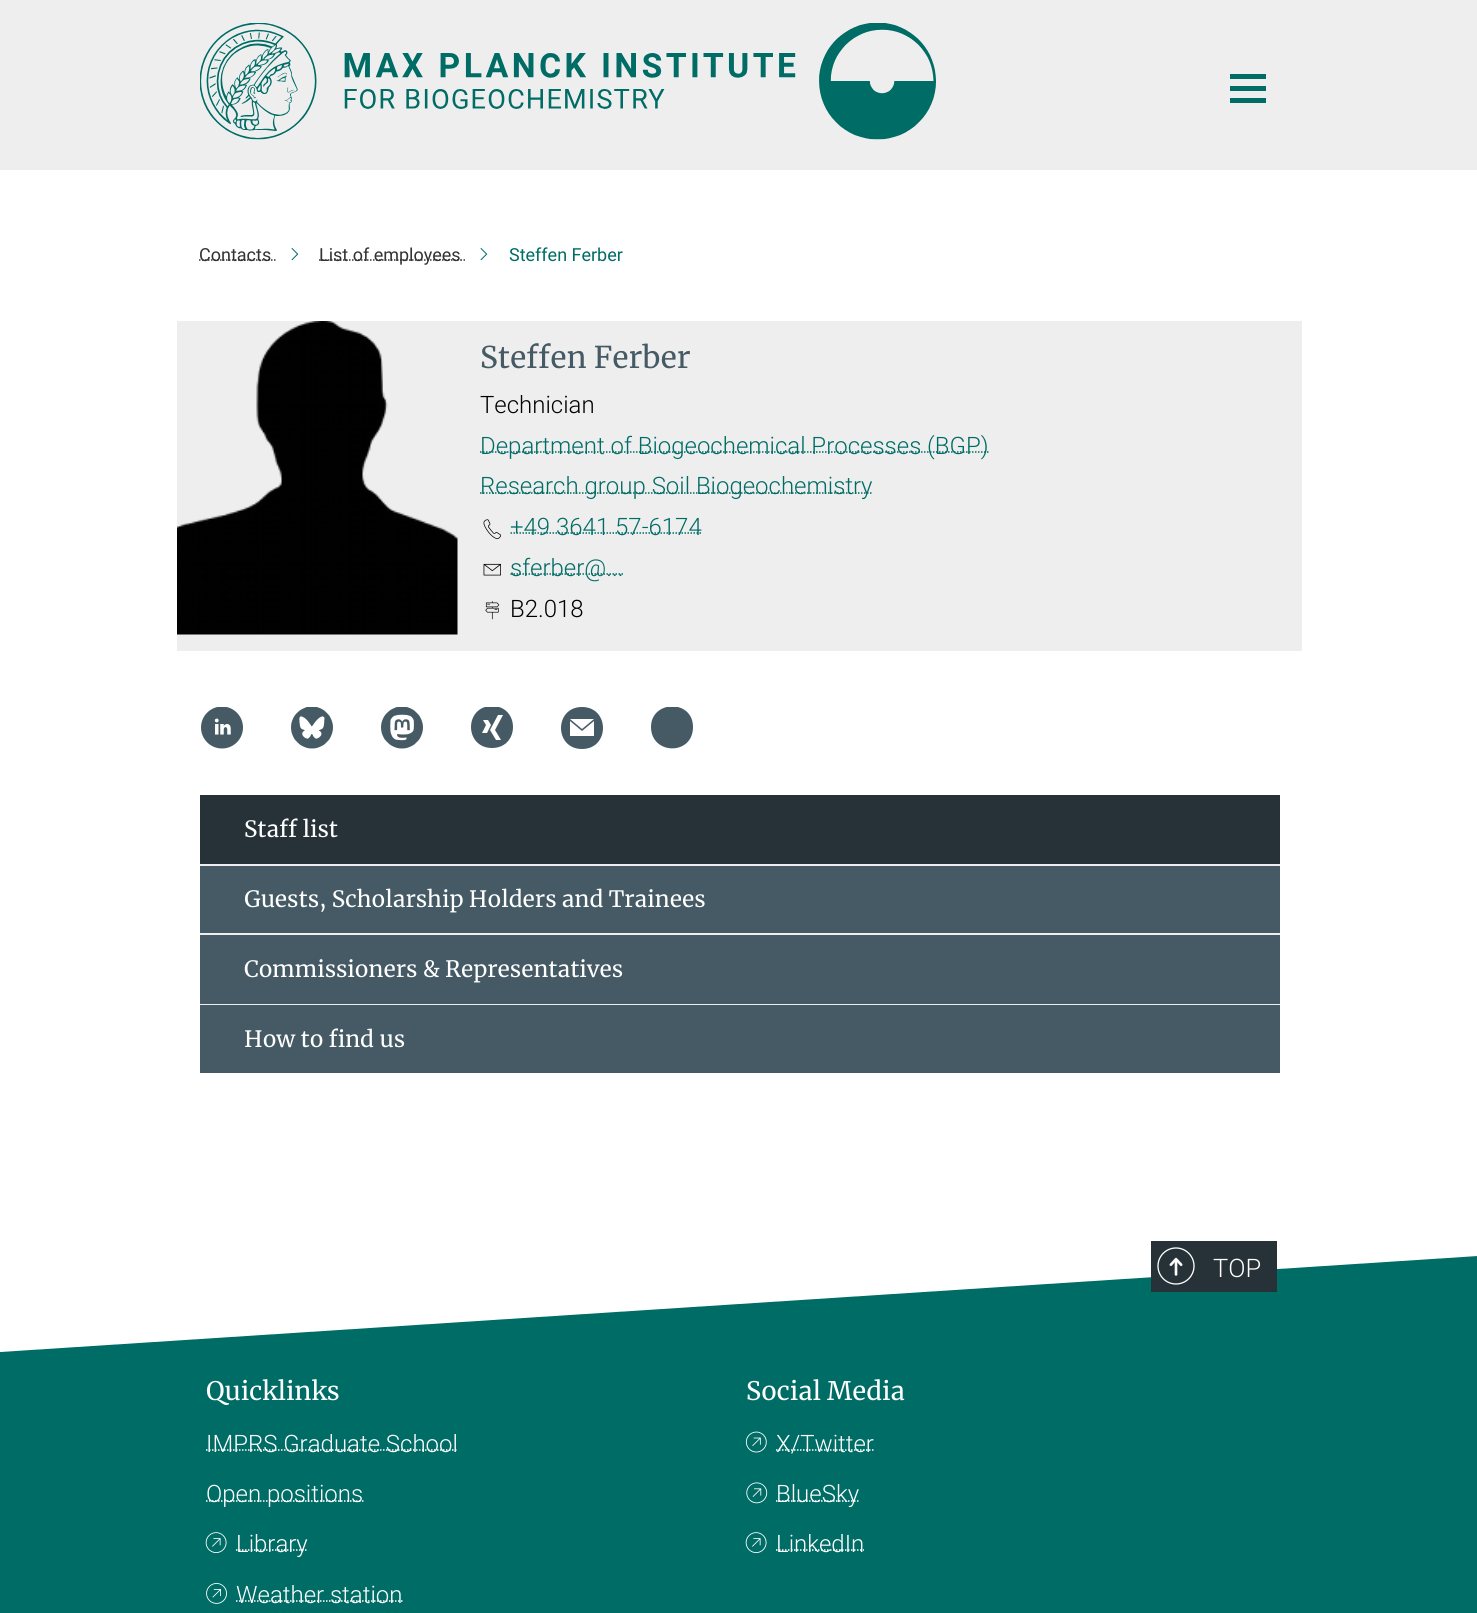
#include <cairo.h>
#include <math.h>
#include <stddef.h>


static void rgb(cairo_t *cr, int r, int g, int b)
{
	cairo_set_source_rgb(cr, r / 255.0, g / 255.0, b / 255.0);
}

static void face(cairo_t *cr, const char *family, double size, int italic, int bold)
{
	cairo_select_font_face(cr, family, italic ? CAIRO_FONT_SLANT_ITALIC : CAIRO_FONT_SLANT_NORMAL,
		bold ? CAIRO_FONT_WEIGHT_BOLD : CAIRO_FONT_WEIGHT_NORMAL);
	cairo_set_font_size(cr, size);
}

static void label(cairo_t *cr, double x, double y, const char *s)
{
	cairo_move_to(cr, x, y);
	cairo_show_text(cr, s);
}

static void rect(cairo_t *cr, double x, double y, double w, double h)
{
	cairo_rectangle(cr, x, y, w, h);
	cairo_fill(cr);
}

static void image(cairo_t *cr, const char *path, double x, double y, double w, double h)
{
	cairo_surface_t *image = cairo_image_surface_create_from_png(path);
	cairo_save(cr);
	cairo_set_source_surface(cr, image, x, y);
	cairo_rectangle(cr, x, y, w, h);
	cairo_fill(cr);
	cairo_restore(cr);
	cairo_surface_destroy(image);
}

static void draw(cairo_t *cr) {
	rgb(cr, 255, 255, 255);
	cairo_paint(cr);
	rgb(cr, 238, 238, 238);
	rect(cr, 0, 0, 1477, 170);
	image(cr, "image0.png", 200, 23, 737, 117);
	rgb(cr, 0, 108, 102);
	rect(cr, 1230, 74, 36, 5);
	rect(cr, 1230, 86, 36, 5);
	rect(cr, 1230, 98, 36, 5);
	cairo_new_path(cr);
	cairo_move_to(cr, 199, 260);
	cairo_line_to(cr, 271, 260);
	rgb(cr, 51, 51, 51);
	cairo_set_line_width(cr, 1.5);
	cairo_set_dash(cr, (double[]){1.5, 1.5}, 2, 0);
	cairo_stroke(cr);
	cairo_save(cr);
	cairo_rectangle(cr, 200, 209, 1080, 88);
	cairo_clip(cr);
	face(cr, "Roboto", 18, 0, 0);
	label(cr, 199, 261, "Contacts");
	cairo_restore(cr);
	cairo_new_path(cr);
	cairo_move_to(cr, 271, 260);
	cairo_line_to(cr, 272.5, 260);
	cairo_move_to(cr, 274, 260);
	cairo_line_to(cr, 275.5, 260);
	cairo_set_dash(cr, NULL, 0, 0);
	cairo_stroke(cr);
	image(cr, "image1.png", 291, 248, 8, 13);
	cairo_new_path(cr);
	cairo_move_to(cr, 319, 260);
	cairo_line_to(cr, 460.5, 260);
	cairo_set_dash(cr, (double[]){1.5, 1.5}, 2, 0);
	cairo_stroke(cr);
	face(cr, "Roboto", 18, 0, 0);
	label(cr, 319, 261, "List of employees");
	cairo_new_path(cr);
	cairo_move_to(cr, 460.5, 260);
	cairo_line_to(cr, 462, 260);
	cairo_move_to(cr, 463.5, 260);
	cairo_line_to(cr, 465, 260);
	cairo_set_dash(cr, NULL, 0, 0);
	cairo_stroke(cr);
	image(cr, "image1.png", 480, 248, 8, 13);
	rgb(cr, 0, 108, 102);
	label(cr, 509, 261, "Steffen Ferber");
	rgb(cr, 238, 238, 238);
	rect(cr, 177, 321, 1125, 330);
	image(cr, "image2.png", 177, 321, 281, 314);
	face(cr, "Merriweather", 30, 0, 0);
	rgb(cr, 69, 90, 100);
	label(cr, 480, 368, "Steffen Ferber");
	face(cr, "Roboto Light", 24, 0, 0);
	rgb(cr, 0, 0, 0);
	label(cr, 480, 413, "Technician");
	cairo_new_path(cr);
	cairo_move_to(cr, 480, 452);
	cairo_line_to(cr, 988.5, 452);
	rgb(cr, 0, 108, 102);
	cairo_set_dash(cr, (double[]){1.5, 1.5}, 2, 0);
	cairo_stroke(cr);
	label(cr, 480, 454, "Department of Biogeochemical Processes (BGP)");
	cairo_new_path(cr);
	cairo_move_to(cr, 480, 493);
	cairo_line_to(cr, 872.5, 493);
	cairo_stroke(cr);
	label(cr, 480, 494, "Research group Soil Biogeochemistry");
	image(cr, "image3.png", 483, 519, 19, 21);
	cairo_new_path(cr);
	cairo_move_to(cr, 510.5, 533);
	cairo_line_to(cr, 702, 533);
	cairo_stroke(cr);
	label(cr, 510, 535, "+49 3641 57-6174");
	image(cr, "image4.png", 483, 563, 18, 13);
	cairo_new_path(cr);
	cairo_move_to(cr, 510.5, 574);
	cairo_line_to(cr, 624, 574);
	cairo_stroke(cr);
	label(cr, 510, 576, "sferber@...");
	image(cr, "image5.png", 485, 601, 15, 19);
	rgb(cr, 0, 0, 0);
	label(cr, 510, 617, "B2.018");
	image(cr, "image6.png", 201, 707, 42, 42);
	image(cr, "image7.png", 291, 707, 42, 42);
	image(cr, "image8.png", 381, 707, 42, 42);
	cairo_save(cr);
	cairo_rectangle(cr, 471, 707, 42, 42);
	cairo_clip(cr);
	rgb(cr, 69, 90, 100);
	cairo_new_path(cr);
	cairo_move_to(cr, 492, 706);
	cairo_curve_to(cr, 464, 706, 464, 748, 492, 748);
	cairo_curve_to(cr, 520, 748, 520, 706, 492, 706);
	cairo_close_path(cr);
	cairo_move_to(cr, 482, 733);
	cairo_line_to(cr, 486, 725);
	cairo_line_to(cr, 483, 720);
	cairo_line_to(cr, 488, 720);
	cairo_line_to(cr, 491, 725);
	cairo_line_to(cr, 487, 733);
	cairo_close_path(cr);
	cairo_move_to(cr, 501, 740);
	cairo_line_to(cr, 496, 740);
	cairo_line_to(cr, 490, 730);
	cairo_line_to(cr, 498, 715);
	cairo_line_to(cr, 503, 715);
	cairo_line_to(cr, 495, 730);
	cairo_close_path(cr);
	cairo_fill(cr);
	cairo_restore(cr);
	rgb(cr, 69, 90, 100);
	cairo_new_path(cr);
	cairo_move_to(cr, 582, 707);
	cairo_curve_to(cr, 554, 707, 554, 749, 582, 749);
	cairo_curve_to(cr, 610, 749, 610, 707, 582, 707);
	cairo_close_path(cr);
	cairo_move_to(cr, 594, 719);
	cairo_line_to(cr, 582, 729);
	cairo_line_to(cr, 570, 719);
	cairo_close_path(cr);
	cairo_move_to(cr, 594, 736);
	cairo_line_to(cr, 570, 736);
	cairo_line_to(cr, 570, 721);
	cairo_line_to(cr, 582, 731);
	cairo_line_to(cr, 594, 721);
	cairo_close_path(cr);
	cairo_fill(cr);
	cairo_save(cr);
	cairo_rectangle(cr, 651, 707, 42, 42);
	cairo_clip(cr);
	cairo_new_path(cr);
	cairo_move_to(cr, 693, 727);
	cairo_curve_to(cr, 693, 756, 651, 755, 651, 727);
	cairo_curve_to(cr, 651, 700, 693, 699, 693, 727);
	cairo_close_path(cr);
	cairo_fill(cr);
	cairo_restore(cr);
	rgb(cr, 38, 50, 56);
	rect(cr, 200, 795, 1080, 69);
	rgb(cr, 238, 238, 238);
	rect(cr, 200, 864, 1080, 2);
	face(cr, "Merriweather", 22.5, 0, 0);
	rgb(cr, 255, 255, 255);
	label(cr, 244, 837, "Staff list");
	rgb(cr, 69, 90, 100);
	rect(cr, 200, 866, 1080, 67);
	rgb(cr, 238, 238, 238);
	rect(cr, 200, 933, 1080, 2);
	rgb(cr, 255, 255, 255);
	label(cr, 244, 907, "Guests, Scholarship Holders and Trainees");
	rgb(cr, 69, 90, 100);
	rect(cr, 200, 935, 1080, 69);
	rgb(cr, 238, 238, 238);
	rect(cr, 200, 1004, 1080, 1);
	rgb(cr, 255, 255, 255);
	label(cr, 244, 977, "Commissioners & Representatives");
	rgb(cr, 69, 90, 100);
	rect(cr, 200, 1005, 1080, 68);
	rgb(cr, 255, 255, 255);
	label(cr, 244, 1047, "How to find us");
	rgb(cr, 0, 108, 102);
	rect(cr, 0, 1361, 1477, 252);
	cairo_new_path(cr);
	cairo_move_to(cr, 0, 1352);
	cairo_line_to(cr, 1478, 1256);
	cairo_line_to(cr, 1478, 1361);
	cairo_line_to(cr, 0, 1361);
	cairo_fill(cr);
	rgb(cr, 38, 50, 56);
	rect(cr, 1151, 1241, 126, 51);
	image(cr, "image9.png", 1169, 1257, 14, 19);
	image(cr, "image10.png", 1157, 1247, 38, 38);
	face(cr, "Roboto Light", 25.5, 0, 0);
	rgb(cr, 255, 255, 255);
	label(cr, 1213, 1277, "TOP");
	face(cr, "Merriweather", 25.5, 0, 0);
	label(cr, 206, 1400, "Quicklinks");
	cairo_new_path(cr);
	cairo_move_to(cr, 206, 1450);
	cairo_line_to(cr, 458, 1450);
	cairo_stroke(cr);
	face(cr, "Roboto Light", 24, 0, 0);
	label(cr, 206, 1452, "IMPRS Graduate School");
	cairo_new_path(cr);
	cairo_move_to(cr, 206, 1501);
	cairo_line_to(cr, 363.5, 1501);
	cairo_stroke(cr);
	label(cr, 206, 1502, "Open positions");
	image(cr, "image11.png", 205, 1532, 22, 21);
	cairo_new_path(cr);
	cairo_move_to(cr, 236, 1550);
	cairo_line_to(cr, 307.5, 1550);
	cairo_stroke(cr);
	label(cr, 236, 1552, "Library");
	image(cr, "image12.png", 206, 1583, 21, 21);
	cairo_new_path(cr);
	cairo_move_to(cr, 236, 1601);
	cairo_line_to(cr, 402.5, 1601);
	cairo_stroke(cr);
	label(cr, 236, 1603, "Weather station");
	face(cr, "Merriweather", 25.5, 0, 0);
	label(cr, 746, 1400, "Social Media");
	image(cr, "image13.png", 745, 1431, 22, 22);
	cairo_new_path(cr);
	cairo_move_to(cr, 776, 1450);
	cairo_line_to(cr, 874, 1450);
	cairo_stroke(cr);
	face(cr, "Roboto Light", 24, 0, 0);
	label(cr, 776, 1452, "X/Twitter");
	image(cr, "image14.png", 746, 1482, 22, 22);
	cairo_new_path(cr);
	cairo_move_to(cr, 776, 1501);
	cairo_line_to(cr, 859, 1501);
	cairo_stroke(cr);
	label(cr, 776, 1502, "BlueSky");
	image(cr, "image11.png", 745, 1532, 22, 21);
	cairo_new_path(cr);
	cairo_move_to(cr, 776, 1550);
	cairo_line_to(cr, 864, 1550);
	cairo_stroke(cr);
	label(cr, 776, 1552, "LinkedIn");
}

int main(void) {
	cairo_surface_t *surface = cairo_image_surface_create(CAIRO_FORMAT_RGB24, 1477, 1613);
	cairo_t *cr = cairo_create(surface);
	cairo_font_options_t *options = cairo_font_options_create();
	cairo_font_options_set_hint_metrics(options, CAIRO_HINT_METRICS_OFF);
	cairo_font_options_set_hint_style(options, CAIRO_HINT_STYLE_NONE);
	cairo_set_font_options(cr, options);
	cairo_set_miter_limit(cr, 4);
	draw(cr);
	cairo_surface_write_to_png(surface, "render.png");
	cairo_font_options_destroy(options);
	cairo_destroy(cr);
	cairo_surface_destroy(surface);
	return 0;
}
